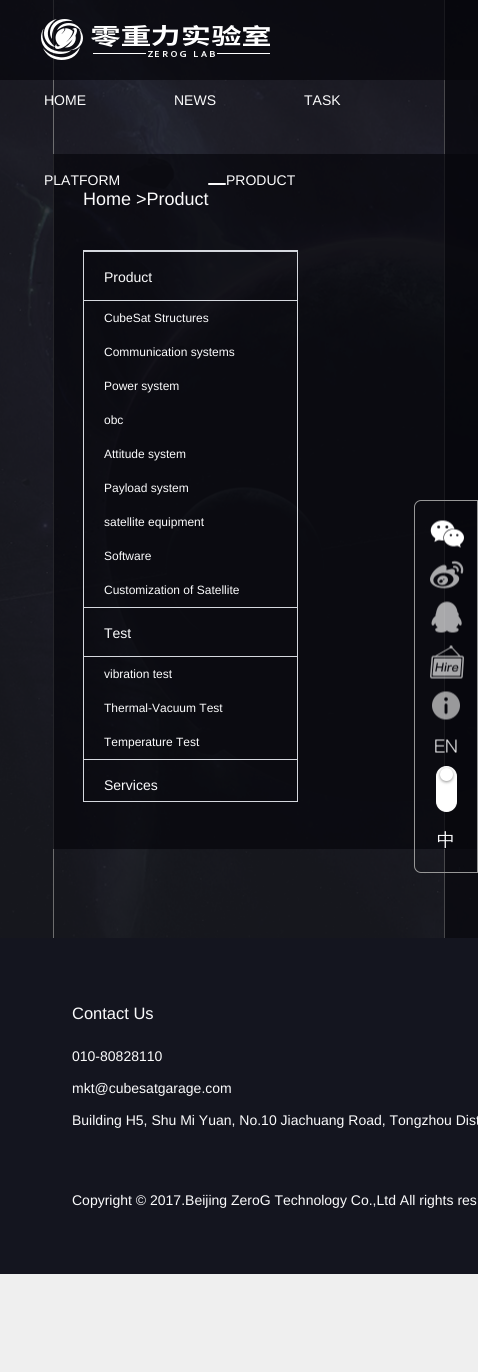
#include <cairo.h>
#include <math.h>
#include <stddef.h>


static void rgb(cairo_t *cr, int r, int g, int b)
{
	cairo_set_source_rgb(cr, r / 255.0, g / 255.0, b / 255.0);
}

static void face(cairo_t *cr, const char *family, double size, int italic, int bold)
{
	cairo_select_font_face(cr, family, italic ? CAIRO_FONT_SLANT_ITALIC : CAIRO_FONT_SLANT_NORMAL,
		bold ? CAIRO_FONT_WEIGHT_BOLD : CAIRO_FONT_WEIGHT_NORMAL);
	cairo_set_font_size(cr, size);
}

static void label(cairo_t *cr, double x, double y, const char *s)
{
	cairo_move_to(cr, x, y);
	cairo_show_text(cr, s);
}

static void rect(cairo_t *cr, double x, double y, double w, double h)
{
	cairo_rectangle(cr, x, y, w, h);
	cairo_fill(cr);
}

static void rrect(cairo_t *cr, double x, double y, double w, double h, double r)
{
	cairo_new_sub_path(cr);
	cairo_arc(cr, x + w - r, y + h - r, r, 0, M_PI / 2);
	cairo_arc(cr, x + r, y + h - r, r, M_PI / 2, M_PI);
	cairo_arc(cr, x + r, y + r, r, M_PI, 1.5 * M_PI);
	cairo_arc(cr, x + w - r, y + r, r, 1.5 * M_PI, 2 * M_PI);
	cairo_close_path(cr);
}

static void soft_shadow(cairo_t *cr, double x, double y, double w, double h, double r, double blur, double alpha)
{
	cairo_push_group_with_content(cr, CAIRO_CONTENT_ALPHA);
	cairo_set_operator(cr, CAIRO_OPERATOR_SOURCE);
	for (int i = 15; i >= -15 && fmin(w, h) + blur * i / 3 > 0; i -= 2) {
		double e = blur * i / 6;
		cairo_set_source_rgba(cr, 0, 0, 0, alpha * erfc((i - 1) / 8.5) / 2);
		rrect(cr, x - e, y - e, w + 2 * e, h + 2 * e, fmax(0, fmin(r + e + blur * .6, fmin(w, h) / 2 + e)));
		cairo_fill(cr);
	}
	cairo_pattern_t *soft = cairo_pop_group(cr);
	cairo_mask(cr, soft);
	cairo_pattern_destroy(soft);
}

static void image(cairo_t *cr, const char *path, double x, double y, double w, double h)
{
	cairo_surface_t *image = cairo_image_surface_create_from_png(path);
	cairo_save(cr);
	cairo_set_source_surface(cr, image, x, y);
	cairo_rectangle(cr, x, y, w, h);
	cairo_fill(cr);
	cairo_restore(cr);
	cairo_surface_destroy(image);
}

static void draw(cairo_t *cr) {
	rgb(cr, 239, 239, 239);
	cairo_paint(cr);
	image(cr, "image1.png", 0, 0, 478, 938);
	cairo_set_source_rgba(cr, 0.027, 0.027, 0.047, 0.7);
	rect(cr, 0, 0, 478, 80);
	image(cr, "image0.png", 41, 19, 229, 41);
	face(cr, "Liberation Sans", 14, 0, 0);
	rgb(cr, 251, 251, 252);
	label(cr, 44, 105, "HOME");
	label(cr, 174, 105, "NEWS");
	label(cr, 304, 105, "TASK");
	cairo_set_source_rgba(cr, 0.027, 0.027, 0.047, 0.7);
	rect(cr, 53, 154, 425, 695);
	rgb(cr, 251, 251, 252);
	label(cr, 44, 185, "PLATFORM");
	rrect(cr, 208, 183, 18, 2, 1);
	cairo_fill(cr);
	label(cr, 226, 185, "PRODUCT");
	face(cr, "Liberation Sans", 18, 0, 0);
	label(cr, 83, 205, "Home >Product");
	cairo_rectangle(cr, 83.5, 250.5, 214, 551);
	rgb(cr, 213, 216, 222);
	cairo_set_line_width(cr, 1);
	cairo_stroke(cr);
	rect(cr, 84, 251, 213, 1);
	rect(cr, 84, 300, 213, 1);
	face(cr, "Liberation Sans", 14, 0, 0);
	rgb(cr, 251, 251, 252);
	label(cr, 104, 282, "Product");
	face(cr, "Liberation Sans", 12, 0, 0);
	label(cr, 104, 322, "CubeSat Structures");
	label(cr, 104, 356, "Communication systems");
	label(cr, 104, 390, "Power system");
	label(cr, 104, 424, "obc");
	label(cr, 104, 458, "Attitude system");
	label(cr, 104, 492, "Payload system");
	label(cr, 104, 526, "satellite equipment");
	label(cr, 104, 560, "Software");
	label(cr, 104, 594, "Customization of Satellite");
	rgb(cr, 213, 216, 222);
	rect(cr, 84, 607, 213, 1);
	rect(cr, 84, 656, 213, 1);
	face(cr, "Liberation Sans", 14, 0, 0);
	rgb(cr, 251, 251, 252);
	label(cr, 104, 638, "Test");
	face(cr, "Liberation Sans", 12, 0, 0);
	label(cr, 104, 678, "vibration test");
	label(cr, 104, 712, "Thermal-Vacuum Test");
	label(cr, 104, 746, "Temperature Test");
	rgb(cr, 213, 216, 222);
	rect(cr, 84, 759, 213, 1);
	face(cr, "Liberation Sans", 14, 0, 0);
	rgb(cr, 251, 251, 252);
	label(cr, 104, 790, "Services");
	cairo_new_path(cr);
	cairo_move_to(cr, 421, 500.5);
	cairo_line_to(cr, 477.5, 500.5);
	cairo_line_to(cr, 477.5, 872.5);
	cairo_line_to(cr, 421, 872.5);
	cairo_curve_to(cr, 417.5, 872.5, 414.5, 869.5, 414.5, 866);
	cairo_line_to(cr, 414.5, 507);
	cairo_curve_to(cr, 414.5, 503.5, 417.5, 500.5, 421, 500.5);
	cairo_close_path(cr);
	rgb(cr, 151, 151, 151);
	cairo_stroke(cr);
	image(cr, "image2.png", 430, 520, 34, 28);
	image(cr, "image3.png", 430, 560, 34, 29);
	image(cr, "image4.png", 431, 601, 31, 32);
	image(cr, "image5.png", 430, 645, 34, 34);
	image(cr, "image6.png", 432, 691, 28, 29);
	image(cr, "image7.png", 435, 739, 22, 14);
	rgb(cr, 255, 255, 255);
	rrect(cr, 436.5, 766.5, 20, 45, 10);
	cairo_fill_preserve(cr);
	cairo_stroke(cr);
	rgb(cr, 0, 0, 0);
	soft_shadow(cr, 440, 769, 13, 13, 6.5, 1.5, 0.4);
	rgb(cr, 255, 255, 255);
	cairo_arc(cr, 446.5, 774.5, 6.5, 0, 2 * M_PI);
	cairo_fill(cr);
	face(cr, "WenQuanYi Zen Hei Medium", 18, 0, 0);
	rgb(cr, 251, 251, 252);
	label(cr, 437, 846, "中");
	rgb(cr, 20, 21, 31);
	rect(cr, 0, 938, 478, 336);
	face(cr, "Liberation Sans", 16.5, 0, 0);
	rgb(cr, 251, 251, 252);
	label(cr, 72, 1019, "Contact Us");
	face(cr, "Liberation Sans", 14, 0, 0);
	label(cr, 72, 1061, "010-80828110");
	label(cr, 72, 1093, "mkt@cubesatgarage.com");
	label(cr, 72, 1125, "Building H5, Shu Mi Yuan, No.10 Jiachuang Road, Tongzhou Dist");
	label(cr, 72, 1205, "Copyright © 2017.Beijing ZeroG Technology Co.,Ltd All rights res");
}

int main(void) {
	cairo_surface_t *surface = cairo_image_surface_create(CAIRO_FORMAT_RGB24, 478, 1372);
	cairo_t *cr = cairo_create(surface);
	cairo_font_options_t *options = cairo_font_options_create();
	cairo_font_options_set_hint_metrics(options, CAIRO_HINT_METRICS_OFF);
	cairo_font_options_set_hint_style(options, CAIRO_HINT_STYLE_NONE);
	cairo_set_font_options(cr, options);
	cairo_set_miter_limit(cr, 4);
	draw(cr);
	cairo_surface_write_to_png(surface, "render.png");
	cairo_font_options_destroy(options);
	cairo_destroy(cr);
	cairo_surface_destroy(surface);
	return 0;
}
